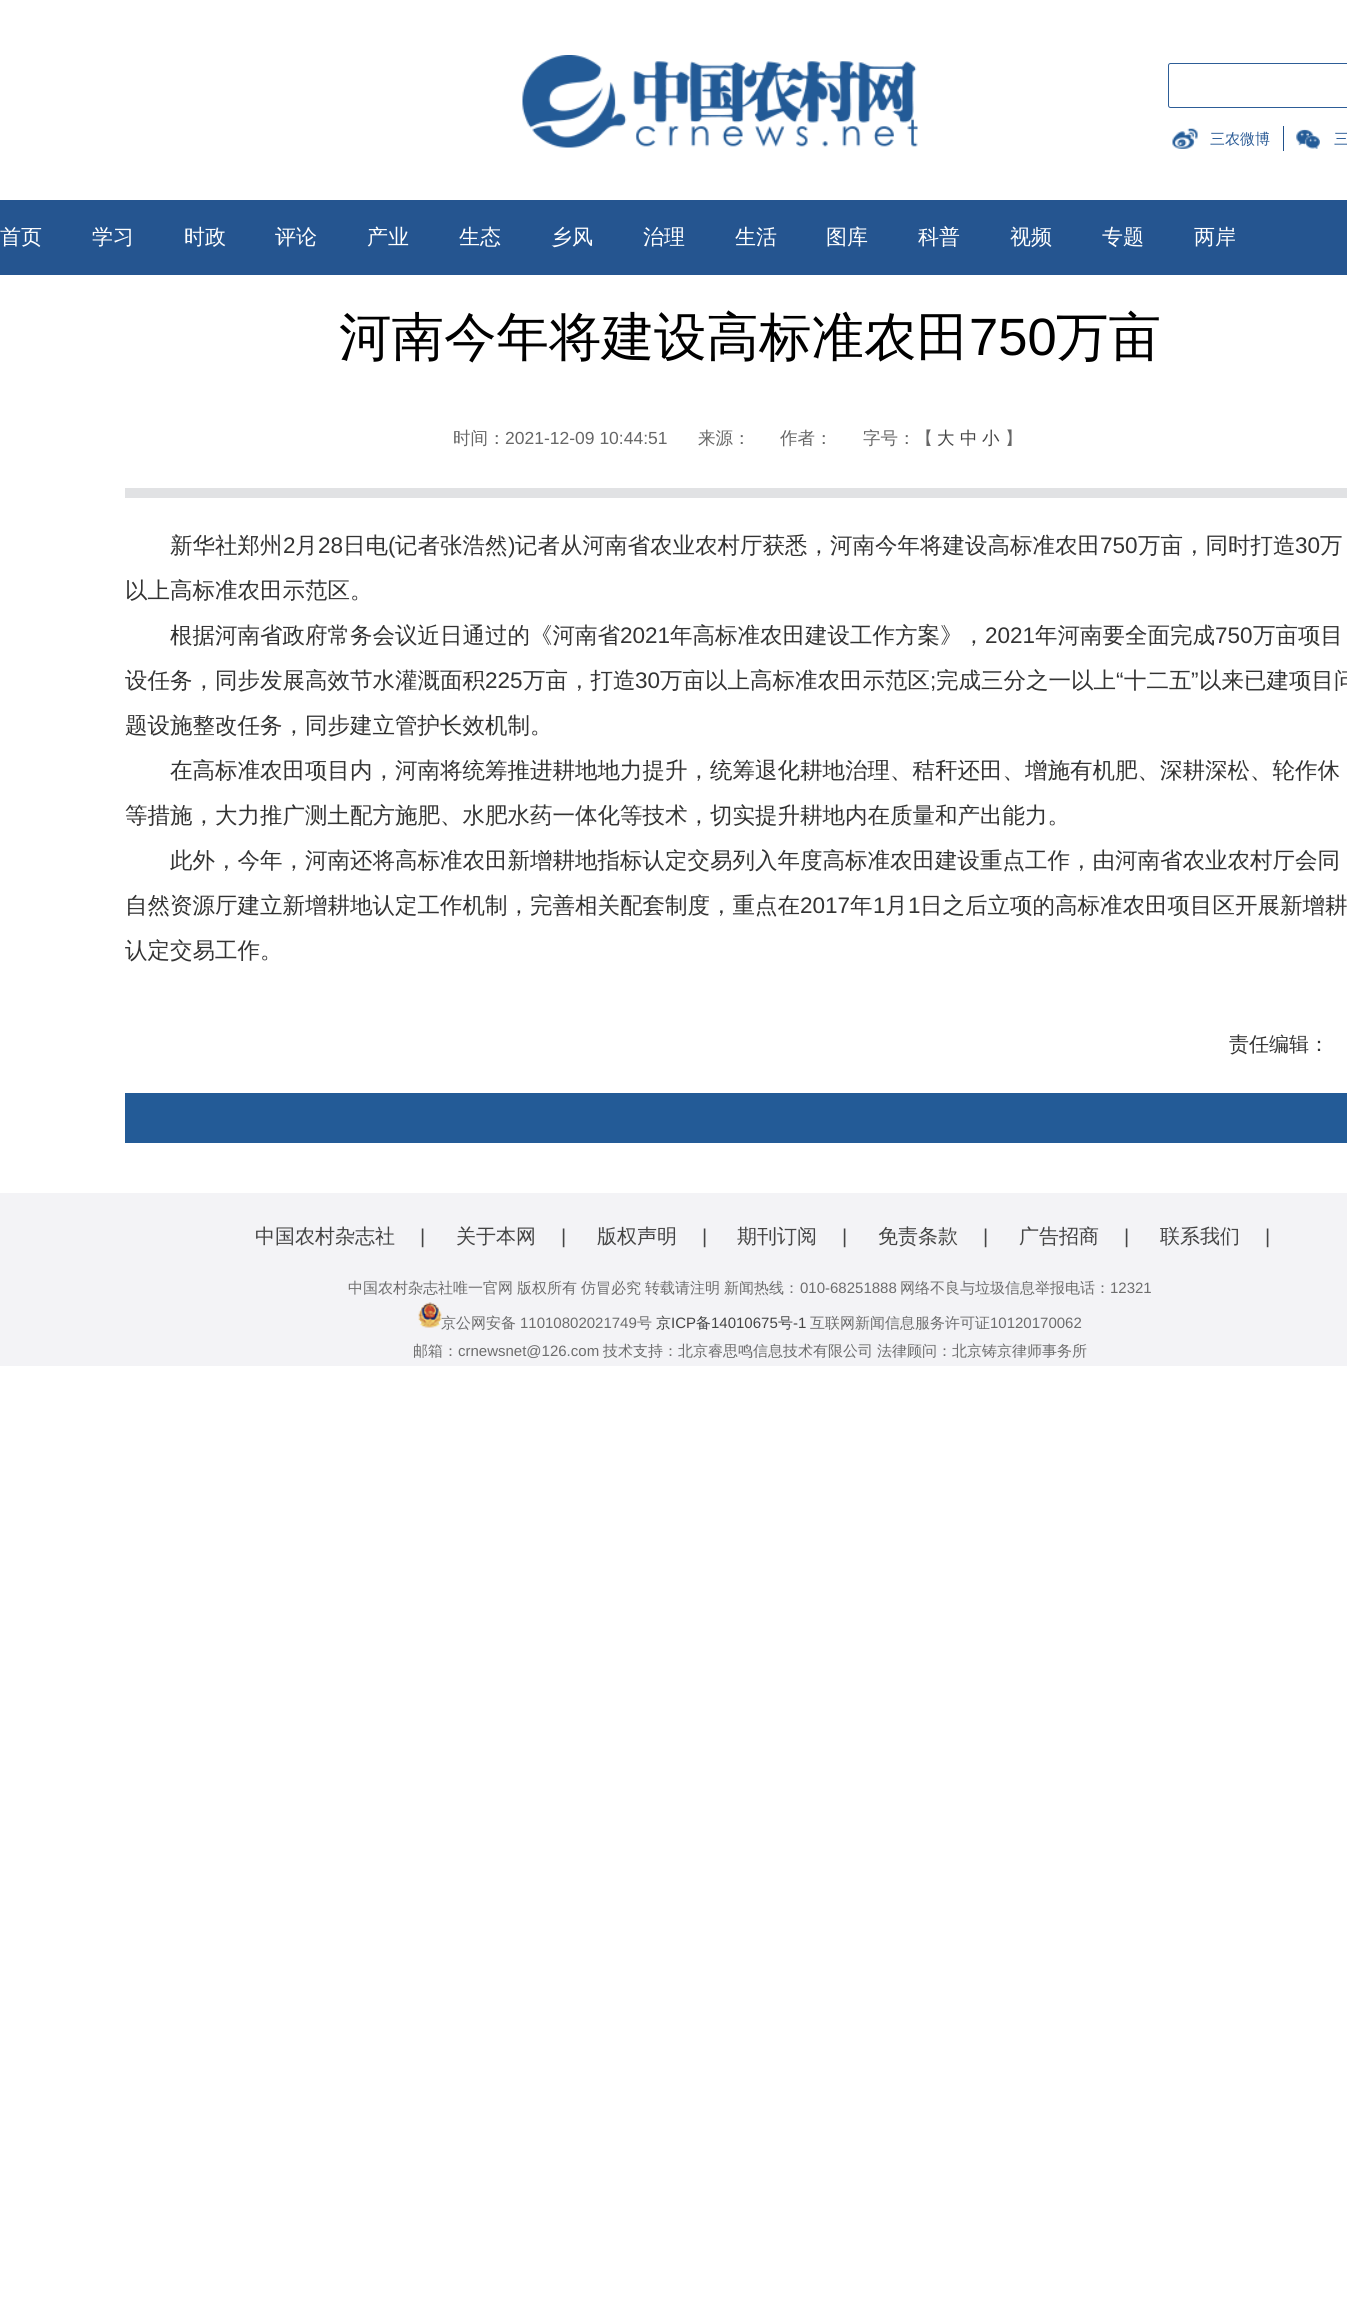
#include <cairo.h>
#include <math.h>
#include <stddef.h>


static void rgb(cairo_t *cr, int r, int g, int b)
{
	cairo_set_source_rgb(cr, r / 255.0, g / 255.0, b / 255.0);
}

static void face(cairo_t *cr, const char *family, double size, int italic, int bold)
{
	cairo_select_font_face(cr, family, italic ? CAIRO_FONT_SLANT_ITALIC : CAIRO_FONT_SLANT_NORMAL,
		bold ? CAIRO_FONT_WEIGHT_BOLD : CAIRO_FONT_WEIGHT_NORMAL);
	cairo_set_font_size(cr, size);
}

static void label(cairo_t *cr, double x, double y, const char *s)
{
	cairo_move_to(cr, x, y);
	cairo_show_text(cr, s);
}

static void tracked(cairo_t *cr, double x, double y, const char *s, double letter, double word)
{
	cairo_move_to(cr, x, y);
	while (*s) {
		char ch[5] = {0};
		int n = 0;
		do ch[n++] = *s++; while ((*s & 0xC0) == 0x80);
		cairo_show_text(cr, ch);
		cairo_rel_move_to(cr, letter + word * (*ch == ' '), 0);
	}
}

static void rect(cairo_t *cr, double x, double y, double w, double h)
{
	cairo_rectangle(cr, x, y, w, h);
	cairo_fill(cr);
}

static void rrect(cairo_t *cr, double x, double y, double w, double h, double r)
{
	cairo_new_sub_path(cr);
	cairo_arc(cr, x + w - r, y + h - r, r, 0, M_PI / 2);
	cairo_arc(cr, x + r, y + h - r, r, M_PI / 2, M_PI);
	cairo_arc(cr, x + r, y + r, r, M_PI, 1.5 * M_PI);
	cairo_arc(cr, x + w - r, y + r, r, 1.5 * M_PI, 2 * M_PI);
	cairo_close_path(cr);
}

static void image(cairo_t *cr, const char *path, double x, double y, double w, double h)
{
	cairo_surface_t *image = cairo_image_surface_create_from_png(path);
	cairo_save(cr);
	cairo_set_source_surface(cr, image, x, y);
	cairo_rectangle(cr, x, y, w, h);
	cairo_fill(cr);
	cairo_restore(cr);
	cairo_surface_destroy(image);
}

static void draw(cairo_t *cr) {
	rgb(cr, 255, 255, 255);
	cairo_paint(cr);
	image(cr, "image0.png", 522, 55, 396, 93);
	rrect(cr, 1168.5, 63.5, 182, 44, 2);
	rgb(cr, 45, 93, 151);
	cairo_set_line_width(cr, 1);
	cairo_stroke(cr);
	image(cr, "image1.png", 1172, 128, 26, 21);
	rgb(cr, 32, 81, 140);
	rect(cr, 1283, 126, 1, 25);
	face(cr, "WenQuanYi Zen Hei Medium", 15, 0, 0);
	rgb(cr, 45, 93, 151);
	label(cr, 1210, 144, "三农微博");
	image(cr, "image2.png", 1296, 129, 24, 20);
	label(cr, 1334, 144, "三");
	rgb(cr, 37, 85, 144);
	rect(cr, 0, 200, 1347, 75);
	face(cr, "WenQuanYi Zen Hei Medium", 21, 0, 0);
	rgb(cr, 255, 255, 255);
	label(cr, 0, 244, "首页");
	label(cr, 92, 244, "学习");
	label(cr, 184, 244, "时政");
	label(cr, 275, 244, "评论");
	label(cr, 367, 244, "产业");
	label(cr, 459, 244, "生态");
	label(cr, 551, 244, "乡风");
	label(cr, 643, 244, "治理");
	label(cr, 735, 244, "生活");
	label(cr, 826, 244, "图库");
	label(cr, 918, 244, "科普");
	label(cr, 1010, 244, "视频");
	label(cr, 1102, 244, "专题");
	label(cr, 1194, 244, "两岸");
	face(cr, "WenQuanYi Zen Hei Medium", 52.5, 0, 0);
	rgb(cr, 0, 0, 0);
	label(cr, 339, 355, "河南今年将建设高标准农田");
	face(cr, "Liberation Sans", 52.5, 0, 0);
	label(cr, 969, 355, "750");
	face(cr, "WenQuanYi Zen Hei Medium", 52.5, 0, 0);
	label(cr, 1056, 355, "万亩");
	rgb(cr, 225, 226, 228);
	rect(cr, 125, 488, 1222, 10);
	face(cr, "WenQuanYi Zen Hei Medium", 17.5, 0, 0);
	rgb(cr, 102, 102, 102);
	label(cr, 453, 444, "时间：");
	face(cr, "Liberation Sans", 17.5, 0, 0);
	label(cr, 505, 444, "2021-12-09 10:44:51");
	face(cr, "WenQuanYi Zen Hei Medium", 17.5, 0, 0);
	label(cr, 698, 444, "来源：");
	label(cr, 780, 444, "作者：");
	label(cr, 863, 444, "字号：【");
	rgb(cr, 68, 68, 68);
	label(cr, 937, 444, "大");
	label(cr, 960, 444, "中");
	label(cr, 982, 444, "小");
	rgb(cr, 102, 102, 102);
	label(cr, 1005, 444, "】");
	face(cr, "WenQuanYi Zen Hei Medium", 22.5, 0, 0);
	rgb(cr, 51, 51, 51);
	label(cr, 170, 553, "新华社郑州");
	face(cr, "Liberation Sans", 22.5, 0, 0);
	label(cr, 283, 553, "2");
	face(cr, "WenQuanYi Zen Hei Medium", 22.5, 0, 0);
	label(cr, 295, 553, "月");
	face(cr, "Liberation Sans", 22.5, 0, 0);
	label(cr, 318, 553, "28");
	face(cr, "WenQuanYi Zen Hei Medium", 22.5, 0, 0);
	label(cr, 343, 553, "日电");
	face(cr, "Liberation Sans", 22.5, 0, 0);
	label(cr, 388, 553, "(");
	face(cr, "WenQuanYi Zen Hei Medium", 22.5, 0, 0);
	label(cr, 395, 553, "记者张浩然");
	face(cr, "Liberation Sans", 22.5, 0, 0);
	label(cr, 508, 553, ")");
	face(cr, "WenQuanYi Zen Hei Medium", 22.5, 0, 0);
	label(cr, 515, 553, "记者从河南省农业农村厅获悉，河南今年将建设高标准农田");
	face(cr, "Liberation Sans", 22.5, 0, 0);
	label(cr, 1100, 553, "750");
	face(cr, "WenQuanYi Zen Hei Medium", 22.5, 0, 0);
	label(cr, 1138, 553, "万亩，同时打造");
	face(cr, "Liberation Sans", 22.5, 0, 0);
	label(cr, 1295, 553, "30");
	face(cr, "WenQuanYi Zen Hei Medium", 22.5, 0, 0);
	label(cr, 1320, 553, "万");
	label(cr, 125, 598, "以上高标准农田示范区。");
	label(cr, 170, 643, "根据河南省政府常务会议近日通过的《河南省");
	face(cr, "Liberation Sans", 22.5, 0, 0);
	label(cr, 620, 643, "2021");
	face(cr, "WenQuanYi Zen Hei Medium", 22.5, 0, 0);
	label(cr, 670, 643, "年高标准农田建设工作方案》，");
	face(cr, "Liberation Sans", 22.5, 0, 0);
	label(cr, 985, 643, "2021");
	face(cr, "WenQuanYi Zen Hei Medium", 22.5, 0, 0);
	label(cr, 1035, 643, "年河南要全面完成");
	face(cr, "Liberation Sans", 22.5, 0, 0);
	label(cr, 1215, 643, "750");
	face(cr, "WenQuanYi Zen Hei Medium", 22.5, 0, 0);
	label(cr, 1253, 643, "万亩项目");
	label(cr, 125, 688, "设任务，同步发展高效节水灌溉面积");
	face(cr, "Liberation Sans", 22.5, 0, 0);
	label(cr, 485, 688, "225");
	face(cr, "WenQuanYi Zen Hei Medium", 22.5, 0, 0);
	label(cr, 523, 688, "万亩，打造");
	face(cr, "Liberation Sans", 22.5, 0, 0);
	label(cr, 635, 688, "30");
	face(cr, "WenQuanYi Zen Hei Medium", 22.5, 0, 0);
	label(cr, 660, 688, "万亩以上高标准农田示范区");
	label(cr, 936, 688, "完成三分之一以上");
	face(cr, "Liberation Sans", 22.5, 0, 0);
	label(cr, 1116, 688, "“");
	face(cr, "WenQuanYi Zen Hei Medium", 22.5, 0, 0);
	label(cr, 1124, 688, "十二五");
	face(cr, "Liberation Sans", 22.5, 0, 0);
	label(cr, 1191, 688, "”");
	face(cr, "WenQuanYi Zen Hei Medium", 22.5, 0, 0);
	label(cr, 1199, 688, "以来已建项目问");
	face(cr, "Liberation Sans", 22.5, 0, 0);
	label(cr, 930, 688, ";");
	face(cr, "WenQuanYi Zen Hei Medium", 22.5, 0, 0);
	label(cr, 125, 733, "题设施整改任务，同步建立管护长效机制。");
	label(cr, 170, 778, "在高标准农田项目内，河南将统筹推进耕地地力提升，统筹退化耕地治理、秸秆还田、增施有机肥、深耕深松、轮作休");
	label(cr, 125, 823, "等措施，大力推广测土配方施肥、水肥水药一体化等技术，切实提升耕地内在质量和产出能力。");
	label(cr, 170, 868, "此外，今年，河南还将高标准农田新增耕地指标认定交易列入年度高标准农田建设重点工作，由河南省农业农村厅会同");
	label(cr, 125, 913, "自然资源厅建立新增耕地认定工作机制，完善相关配套制度，重点在");
	face(cr, "Liberation Sans", 22.5, 0, 0);
	label(cr, 800, 913, "2017");
	face(cr, "WenQuanYi Zen Hei Medium", 22.5, 0, 0);
	label(cr, 850, 913, "年");
	face(cr, "Liberation Sans", 22.5, 0, 0);
	label(cr, 873, 913, "1");
	face(cr, "WenQuanYi Zen Hei Medium", 22.5, 0, 0);
	label(cr, 885, 913, "月");
	face(cr, "Liberation Sans", 22.5, 0, 0);
	label(cr, 908, 913, "1");
	face(cr, "WenQuanYi Zen Hei Medium", 22.5, 0, 0);
	label(cr, 920, 913, "日之后立项的高标准农田项目区开展新增耕");
	label(cr, 125, 958, "认定交易工作。");
	face(cr, "WenQuanYi Zen Hei Medium", 20, 0, 0);
	label(cr, 1229, 1051, "责任编辑：");
	rgb(cr, 35, 91, 151);
	rect(cr, 125, 1093, 1222, 50);
	rgb(cr, 243, 243, 246);
	rect(cr, 0, 1193, 1347, 173);
	rgb(cr, 68, 68, 68);
	label(cr, 255, 1243, "中国农村杂志社");
	face(cr, "Liberation Sans", 20, 0, 0);
	label(cr, 420, 1243, "|");
	face(cr, "WenQuanYi Zen Hei Medium", 20, 0, 0);
	label(cr, 456, 1243, "关于本网");
	face(cr, "Liberation Sans", 20, 0, 0);
	label(cr, 561, 1243, "|");
	face(cr, "WenQuanYi Zen Hei Medium", 20, 0, 0);
	label(cr, 597, 1243, "版权声明");
	face(cr, "Liberation Sans", 20, 0, 0);
	label(cr, 702, 1243, "|");
	face(cr, "WenQuanYi Zen Hei Medium", 20, 0, 0);
	label(cr, 737, 1243, "期刊订阅");
	face(cr, "Liberation Sans", 20, 0, 0);
	label(cr, 842, 1243, "|");
	face(cr, "WenQuanYi Zen Hei Medium", 20, 0, 0);
	label(cr, 878, 1243, "免责条款");
	face(cr, "Liberation Sans", 20, 0, 0);
	label(cr, 983, 1243, "|");
	face(cr, "WenQuanYi Zen Hei Medium", 20, 0, 0);
	label(cr, 1019, 1243, "广告招商");
	face(cr, "Liberation Sans", 20, 0, 0);
	label(cr, 1124, 1243, "|");
	face(cr, "WenQuanYi Zen Hei Medium", 20, 0, 0);
	label(cr, 1160, 1243, "联系我们");
	face(cr, "Liberation Sans", 20, 0, 0);
	label(cr, 1265, 1243, "|");
	face(cr, "WenQuanYi Zen Hei Medium", 15, 0, 0);
	rgb(cr, 108, 108, 108);
	tracked(cr, 348, 1293, "中国农村杂志社唯一官网 版权所有 仿冒必究 转载请注明 新闻热线：", 0, -0.5);
	face(cr, "Liberation Sans", 15, 0, 0);
	label(cr, 800, 1293, "010-68251888");
	face(cr, "WenQuanYi Zen Hei Medium", 15, 0, 0);
	label(cr, 900, 1293, "网络不良与垃圾信息举报电话：");
	face(cr, "Liberation Sans", 15, 0, 0);
	label(cr, 1110, 1293, "12321");
	image(cr, "image3.png", 418, 1302, 24, 26);
	face(cr, "WenQuanYi Zen Hei Medium", 15, 0, 0);
	label(cr, 441, 1328, "京公网安备");
	face(cr, "Liberation Sans", 15, 0, 0);
	label(cr, 520, 1328, "11010802021749");
	face(cr, "WenQuanYi Zen Hei Medium", 15, 0, 0);
	label(cr, 637, 1328, "号");
	rgb(cr, 68, 68, 68);
	label(cr, 656, 1328, "京");
	face(cr, "Liberation Sans", 15, 0, 0);
	label(cr, 671, 1328, "ICP");
	face(cr, "WenQuanYi Zen Hei Medium", 15, 0, 0);
	label(cr, 696, 1328, "备");
	face(cr, "Liberation Sans", 15, 0, 0);
	label(cr, 711, 1328, "14010675");
	face(cr, "WenQuanYi Zen Hei Medium", 15, 0, 0);
	label(cr, 778, 1328, "号");
	face(cr, "Liberation Sans", 15, 0, 0);
	label(cr, 793, 1328, "-1");
	face(cr, "WenQuanYi Zen Hei Medium", 15, 0, 0);
	rgb(cr, 108, 108, 108);
	label(cr, 810, 1328, "互联网新闻信息服务许可证");
	face(cr, "Liberation Sans", 15, 0, 0);
	label(cr, 990, 1328, "10120170062");
	face(cr, "WenQuanYi Zen Hei Medium", 15, 0, 0);
	label(cr, 413, 1356, "邮箱：");
	face(cr, "Liberation Sans", 15, 0, 0);
	label(cr, 458, 1356, "crnewsnet@126.com");
	face(cr, "WenQuanYi Zen Hei Medium", 15, 0, 0);
	tracked(cr, 603, 1356, "技术支持：北京睿思鸣信息技术有限公司 法律顾问：北京铸京律师事务所", 0, -0.5);
}

int main(void) {
	cairo_surface_t *surface = cairo_image_surface_create(CAIRO_FORMAT_RGB24, 1347, 2316);
	cairo_t *cr = cairo_create(surface);
	cairo_font_options_t *options = cairo_font_options_create();
	cairo_font_options_set_hint_metrics(options, CAIRO_HINT_METRICS_OFF);
	cairo_font_options_set_hint_style(options, CAIRO_HINT_STYLE_NONE);
	cairo_set_font_options(cr, options);
	cairo_set_miter_limit(cr, 4);
	draw(cr);
	cairo_surface_write_to_png(surface, "render.png");
	cairo_font_options_destroy(options);
	cairo_destroy(cr);
	cairo_surface_destroy(surface);
	return 0;
}
